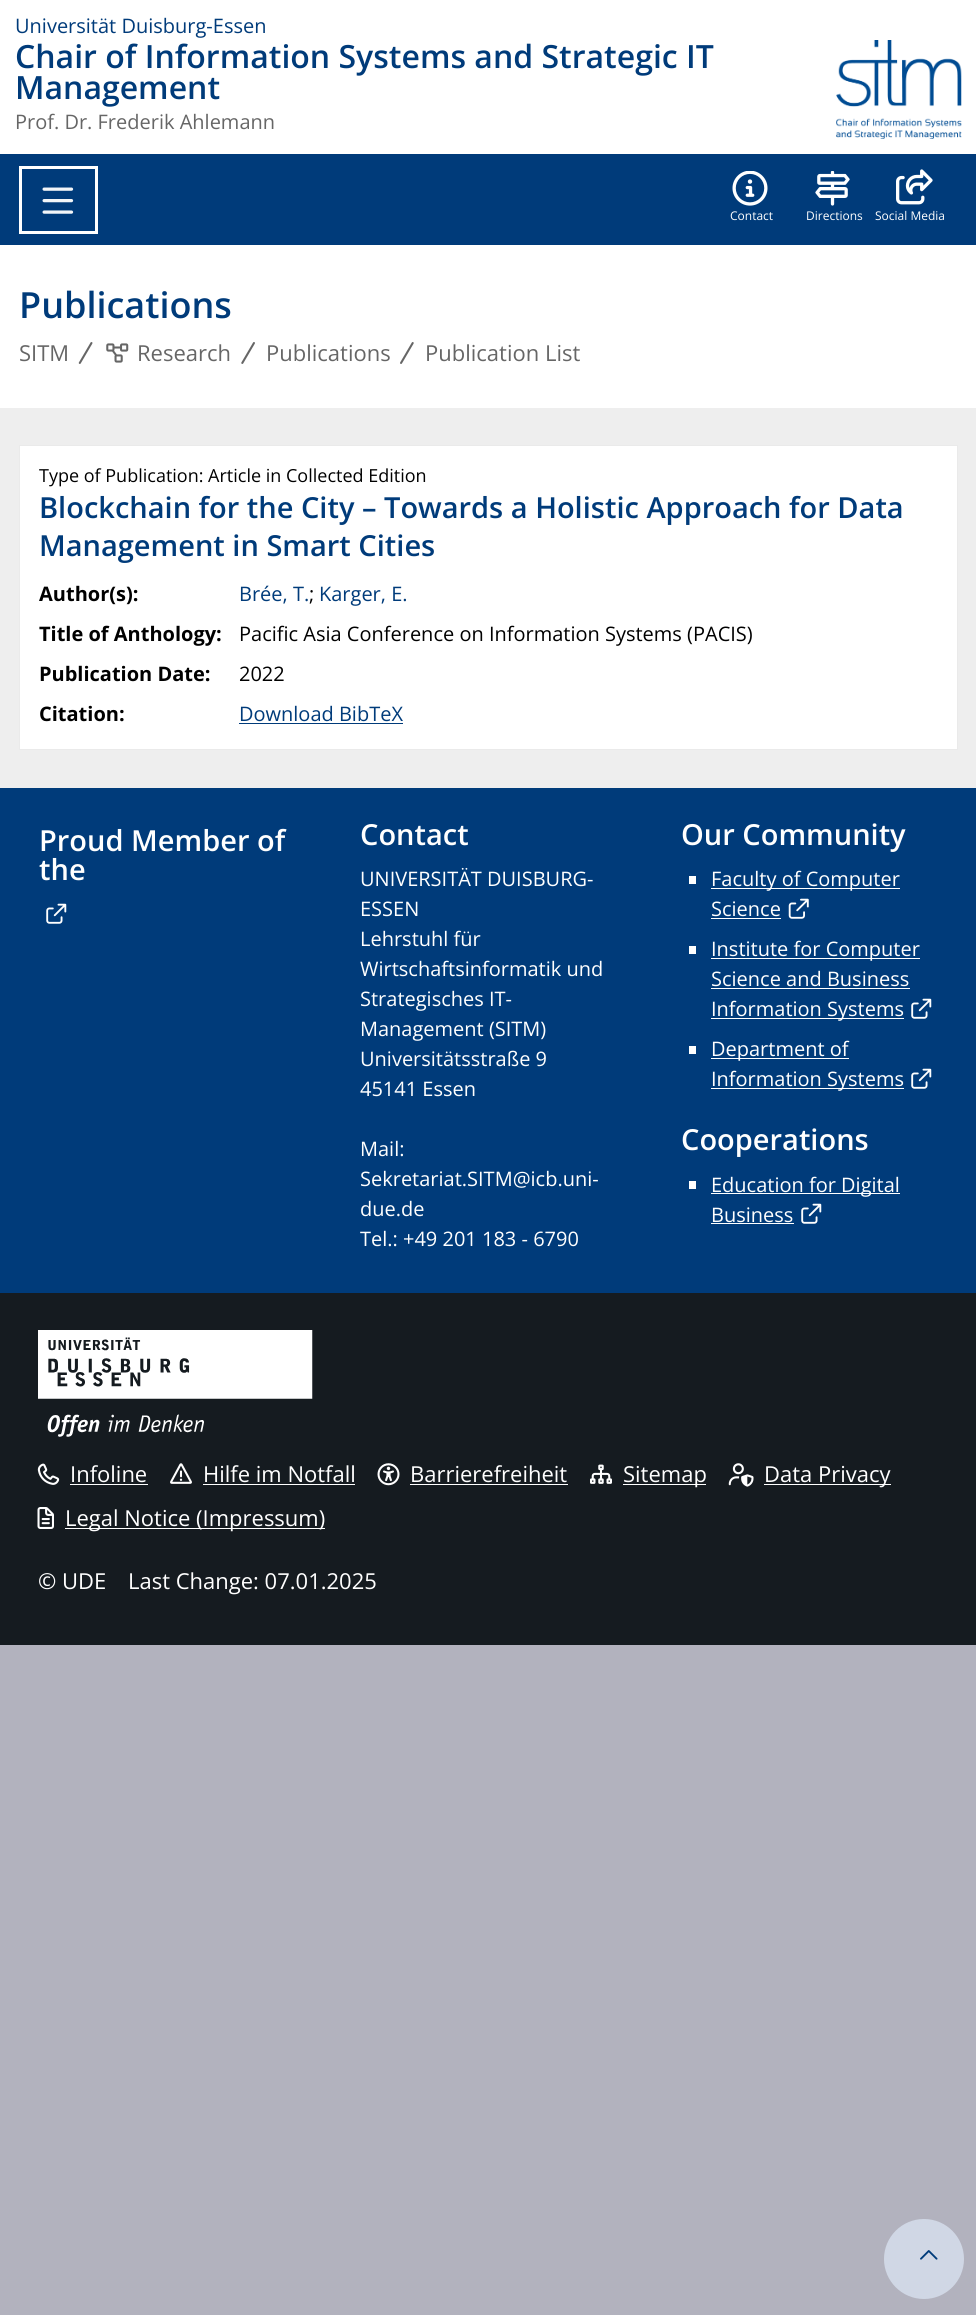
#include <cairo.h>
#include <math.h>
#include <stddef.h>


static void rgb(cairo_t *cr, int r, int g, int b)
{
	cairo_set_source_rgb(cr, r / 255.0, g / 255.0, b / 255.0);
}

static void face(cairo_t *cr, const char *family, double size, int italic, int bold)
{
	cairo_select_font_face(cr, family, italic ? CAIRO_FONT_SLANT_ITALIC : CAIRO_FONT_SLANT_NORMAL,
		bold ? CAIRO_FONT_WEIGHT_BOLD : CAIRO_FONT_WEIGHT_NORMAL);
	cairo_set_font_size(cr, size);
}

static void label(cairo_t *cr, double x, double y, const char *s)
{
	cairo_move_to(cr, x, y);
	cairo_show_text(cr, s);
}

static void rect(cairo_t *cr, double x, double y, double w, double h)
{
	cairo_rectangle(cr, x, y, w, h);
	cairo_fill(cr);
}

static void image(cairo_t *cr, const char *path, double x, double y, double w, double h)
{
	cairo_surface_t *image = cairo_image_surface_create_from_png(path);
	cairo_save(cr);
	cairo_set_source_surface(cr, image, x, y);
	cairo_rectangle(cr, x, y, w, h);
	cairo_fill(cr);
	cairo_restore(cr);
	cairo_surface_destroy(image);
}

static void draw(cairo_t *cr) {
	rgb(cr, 178, 178, 190);
	cairo_paint(cr);
	rgb(cr, 255, 255, 255);
	rect(cr, 0, 0, 976, 408);
	face(cr, "Open Sans", 20, 0, 0);
	rgb(cr, 0, 59, 122);
	label(cr, 15, 33, "Universität Duisburg-Essen");
	face(cr, "Open Sans SemiBold", 32, 0, 0);
	label(cr, 15, 68, "Chair of Information Systems and Strategic IT");
	label(cr, 15, 99, "Management");
	face(cr, "Open Sans", 20, 0, 0);
	rgb(cr, 102, 102, 102);
	label(cr, 15, 129, "Prof. Dr. Frederik Ahlemann");
	image(cr, "image0.png", 836, 40, 126, 99);
	rgb(cr, 0, 59, 122);
	rect(cr, 0, 154, 976, 91);
	cairo_rectangle(cr, 20.5, 167.5, 76, 65);
	rgb(cr, 255, 255, 255);
	cairo_set_line_width(cr, 3);
	cairo_stroke(cr);
	image(cr, "image1.png", 42, 187, 32, 27);
	image(cr, "image2.png", 732, 171, 36, 35);
	face(cr, "Open Sans", 12, 0, 0);
	label(cr, 730, 220, "Contact");
	image(cr, "image3.png", 815, 171, 35, 35);
	label(cr, 806, 220, "Directions");
	image(cr, "image4.png", 896, 169, 37, 36);
	label(cr, 875, 220, "Social Media");
	face(cr, "Open Sans SemiBold", 36, 0, 0);
	rgb(cr, 0, 59, 122);
	label(cr, 19, 318, "Publications");
	face(cr, "Open Sans", 22, 0, 0);
	rgb(cr, 102, 102, 102);
	label(cr, 19, 361, "SITM");
	image(cr, "image5.png", 78, 342, 15, 22);
	image(cr, "image6.png", 106, 343, 23, 20);
	label(cr, 137, 361, "Research");
	image(cr, "image7.png", 241, 342, 14, 22);
	label(cr, 266, 361, "Publications");
	image(cr, "image8.png", 400, 342, 14, 22);
	label(cr, 425, 361, "Publication List");
	rgb(cr, 238, 238, 238);
	rect(cr, 0, 408, 976, 380);
	rgb(cr, 255, 255, 255);
	cairo_rectangle(cr, 19.5, 445.5, 938, 304);
	cairo_fill_preserve(cr);
	rgb(cr, 234, 234, 234);
	cairo_set_line_width(cr, 1);
	cairo_stroke(cr);
	face(cr, "Open Sans", 18, 0, 0);
	rgb(cr, 0, 0, 0);
	label(cr, 39, 482, "Type of Publication: Article in Collected Edition");
	face(cr, "Open Sans SemiBold", 29, 0, 0);
	rgb(cr, 0, 59, 122);
	label(cr, 39, 518, "Blockchain for the City – Towards a Holistic Approach for Data");
	label(cr, 39, 556, "Management in Smart Cities");
	face(cr, "Open Sans", 20, 0, 1);
	rgb(cr, 0, 0, 0);
	label(cr, 39, 601, "Author(s):");
	face(cr, "Open Sans", 20, 0, 0);
	rgb(cr, 0, 59, 122);
	label(cr, 239, 601, "Brée, T.");
	rgb(cr, 0, 0, 0);
	label(cr, 309, 601, ";");
	rgb(cr, 0, 59, 122);
	label(cr, 319, 601, "Karger, E.");
	face(cr, "Open Sans", 20, 0, 1);
	rgb(cr, 0, 0, 0);
	label(cr, 39, 641, "Title of Anthology:");
	face(cr, "Open Sans", 20, 0, 0);
	label(cr, 239, 641, "Pacific Asia Conference on Information Systems (PACIS)");
	face(cr, "Open Sans", 20, 0, 1);
	label(cr, 39, 681, "Publication Date:");
	face(cr, "Open Sans", 20, 0, 0);
	label(cr, 239, 681, "2022");
	face(cr, "Open Sans", 20, 0, 1);
	label(cr, 39, 721, "Citation:");
	face(cr, "Open Sans", 20, 0, 0);
	rgb(cr, 0, 59, 122);
	label(cr, 239, 721, "Download BibTeX");
	rect(cr, 239, 723, 164, 1);
	rgb(cr, 208, 215, 229);
	cairo_new_path(cr);
	cairo_arc(cr, 924, 2259, 40, 0, 2 * M_PI);
	cairo_fill(cr);
	image(cr, "image9.png", 920, 2250, 18, 10);
	rgb(cr, 0, 59, 122);
	rect(cr, 0, 788, 976, 505);
	face(cr, "Open Sans SemiBold", 29, 0, 0);
	rgb(cr, 255, 255, 255);
	label(cr, 39, 851, "Proud Member of");
	label(cr, 39, 880, "the");
	image(cr, "image10.png", 46, 903, 21, 21);
	label(cr, 360, 845, "Contact");
	face(cr, "Open Sans", 20, 0, 0);
	label(cr, 360, 886, "UNIVERSITÄT DUISBURG-");
	label(cr, 360, 916, "ESSEN");
	label(cr, 360, 946, "Lehrstuhl für");
	label(cr, 360, 976, "Wirtschaftsinformatik und");
	label(cr, 360, 1006, "Strategisches IT-");
	label(cr, 360, 1036, "Management (SITM)");
	label(cr, 360, 1066, "Universitätsstraße 9");
	label(cr, 360, 1096, "45141 Essen");
	label(cr, 360, 1156, "Mail:");
	label(cr, 360, 1186, "Sekretariat.SITM@icb.uni-");
	label(cr, 360, 1216, "due.de");
	label(cr, 360, 1246, "Tel.: +49 201 183 - 6790");
	face(cr, "Open Sans SemiBold", 29, 0, 0);
	label(cr, 681, 845, "Our Community");
	rect(cr, 689, 876, 7, 8);
	rect(cr, 711, 888, 189, 1);
	face(cr, "Open Sans", 20, 0, 0);
	label(cr, 711, 886, "Faculty of Computer");
	label(cr, 711, 916, "Science");
	rect(cr, 711, 918, 70, 1);
	image(cr, "image11.png", 788, 898, 21, 21);
	rect(cr, 689, 946, 7, 8);
	rect(cr, 711, 958, 209, 1);
	label(cr, 711, 956, "Institute for Computer");
	label(cr, 711, 986, "Science and Business");
	rect(cr, 711, 988, 199, 1);
	rect(cr, 711, 1018, 193, 1);
	label(cr, 711, 1016, "Information Systems");
	image(cr, "image10.png", 911, 998, 21, 21);
	rect(cr, 689, 1046, 7, 8);
	rect(cr, 711, 1058, 138, 1);
	label(cr, 711, 1056, "Department of");
	rect(cr, 711, 1088, 193, 1);
	label(cr, 711, 1086, "Information Systems");
	image(cr, "image10.png", 911, 1068, 21, 21);
	face(cr, "Open Sans SemiBold", 29, 0, 0);
	label(cr, 681, 1150, "Cooperations");
	rect(cr, 689, 1181, 7, 8);
	rect(cr, 711, 1193, 189, 1);
	face(cr, "Open Sans", 20, 0, 0);
	label(cr, 711, 1192, "Education for Digital");
	label(cr, 711, 1222, "Business");
	rect(cr, 711, 1223, 83, 1);
	image(cr, "image10.png", 801, 1203, 21, 21);
	rgb(cr, 21, 27, 32);
	rect(cr, 0, 1293, 976, 352);
	image(cr, "image12.png", 38, 1330, 275, 107);
	image(cr, "image13.png", 37, 1463, 23, 22);
	face(cr, "Open Sans", 22, 0, 0);
	rgb(cr, 255, 255, 255);
	label(cr, 70, 1482, "Infoline");
	rect(cr, 70, 1484, 78, 1);
	image(cr, "image14.png", 170, 1463, 22, 21);
	label(cr, 203, 1482, "Hilfe im Notfall");
	rect(cr, 203, 1484, 152, 1);
	image(cr, "image15.png", 377, 1463, 23, 23);
	label(cr, 410, 1482, "Barrierefreiheit");
	rect(cr, 410, 1484, 158, 1);
	image(cr, "image16.png", 590, 1464, 22, 20);
	rect(cr, 623, 1484, 83, 1);
	label(cr, 623, 1482, "Sitemap");
	image(cr, "image17.png", 728, 1463, 26, 24);
	rect(cr, 764, 1484, 127, 1);
	label(cr, 764, 1482, "Data Privacy");
	image(cr, "image18.png", 37, 1507, 17, 22);
	rect(cr, 65, 1528, 260, 1);
	label(cr, 65, 1526, "Legal Notice (Impressum)");
	label(cr, 38, 1589, "© UDE");
	label(cr, 128, 1589, "Last Change: 07.01.2025");
}

int main(void) {
	cairo_surface_t *surface = cairo_image_surface_create(CAIRO_FORMAT_RGB24, 976, 2315);
	cairo_t *cr = cairo_create(surface);
	cairo_font_options_t *options = cairo_font_options_create();
	cairo_font_options_set_hint_metrics(options, CAIRO_HINT_METRICS_OFF);
	cairo_font_options_set_hint_style(options, CAIRO_HINT_STYLE_NONE);
	cairo_set_font_options(cr, options);
	cairo_set_miter_limit(cr, 4);
	draw(cr);
	cairo_surface_write_to_png(surface, "render.png");
	cairo_font_options_destroy(options);
	cairo_destroy(cr);
	cairo_surface_destroy(surface);
	return 0;
}
